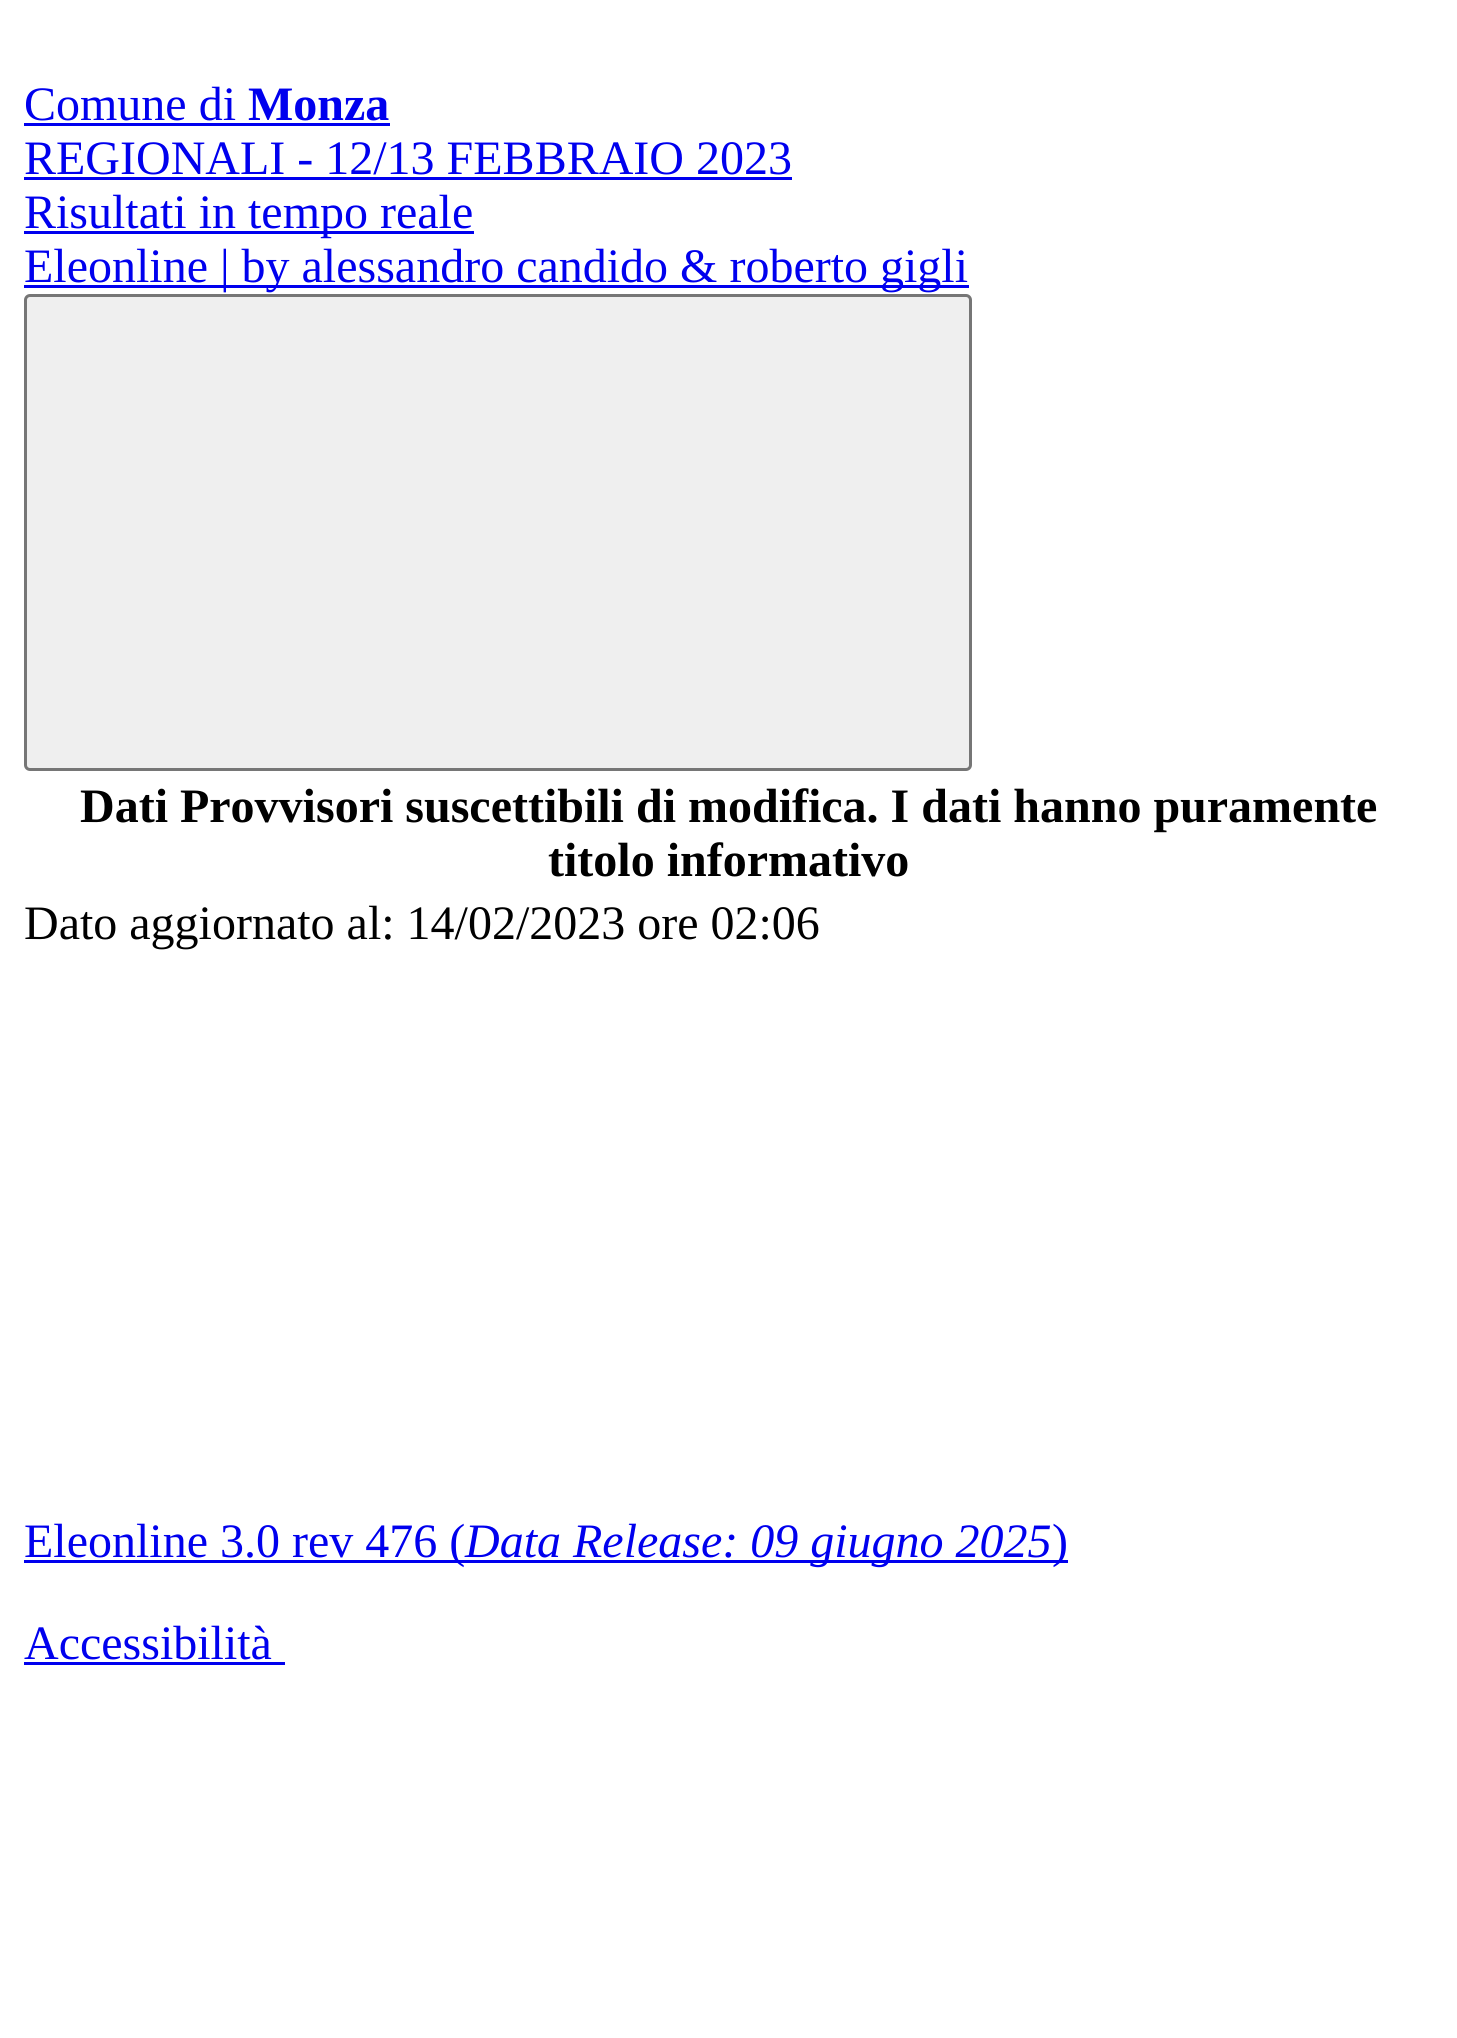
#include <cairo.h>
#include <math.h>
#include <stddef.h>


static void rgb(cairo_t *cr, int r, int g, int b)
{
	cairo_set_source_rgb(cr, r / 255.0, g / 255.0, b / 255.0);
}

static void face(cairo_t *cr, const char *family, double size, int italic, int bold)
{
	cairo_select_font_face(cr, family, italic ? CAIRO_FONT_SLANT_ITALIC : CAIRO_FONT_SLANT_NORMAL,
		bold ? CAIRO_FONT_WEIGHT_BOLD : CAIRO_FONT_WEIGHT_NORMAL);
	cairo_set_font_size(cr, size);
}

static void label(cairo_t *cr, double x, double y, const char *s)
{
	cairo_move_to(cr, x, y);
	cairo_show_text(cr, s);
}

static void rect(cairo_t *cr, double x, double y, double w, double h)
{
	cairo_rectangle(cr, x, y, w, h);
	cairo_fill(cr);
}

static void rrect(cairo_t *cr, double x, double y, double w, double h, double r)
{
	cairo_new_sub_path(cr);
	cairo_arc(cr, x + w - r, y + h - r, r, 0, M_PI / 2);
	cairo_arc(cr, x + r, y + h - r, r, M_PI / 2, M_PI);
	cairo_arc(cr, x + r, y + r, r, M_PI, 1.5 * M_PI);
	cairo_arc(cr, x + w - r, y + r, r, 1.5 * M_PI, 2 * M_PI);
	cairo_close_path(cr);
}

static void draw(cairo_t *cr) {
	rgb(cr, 255, 255, 255);
	cairo_paint(cr);
	face(cr, "Liberation Serif", 48, 0, 0);
	rgb(cr, 0, 0, 238);
	label(cr, 24, 120, "Comune di");
	rect(cr, 24, 123, 366, 3);
	face(cr, "Liberation Serif", 48, 0, 1);
	label(cr, 248, 120, "Monza");
	face(cr, "Liberation Serif", 48, 0, 0);
	label(cr, 24, 174, "REGIONALI - 12/13 FEBBRAIO 2023");
	rect(cr, 24, 177, 768, 3);
	rect(cr, 24, 231, 450, 3);
	label(cr, 24, 228, "Risultati in tempo reale");
	rect(cr, 24, 285, 945, 3);
	label(cr, 24, 282, "Eleonline | by alessandro candido & roberto gigli");
	rgb(cr, 239, 239, 239);
	rrect(cr, 25.5, 295.5, 945, 474, 4.5);
	cairo_fill_preserve(cr);
	rgb(cr, 118, 118, 118);
	cairo_set_line_width(cr, 3);
	cairo_stroke(cr);
	face(cr, "Liberation Serif", 48, 0, 1);
	rgb(cr, 0, 0, 0);
	label(cr, 80, 822, "Dati Provvisori suscettibili di modifica. I dati hanno puramente");
	label(cr, 548, 876, "titolo informativo");
	face(cr, "Liberation Serif", 48, 0, 0);
	label(cr, 24, 939, "Dato aggiornato al: 14/02/2023 ore 02:06");
	rgb(cr, 0, 0, 238);
	rect(cr, 24, 1560, 1044, 3);
	label(cr, 24, 1557, "Eleonline 3.0 rev 476 (");
	face(cr, "Liberation Serif", 48, 1, 0);
	label(cr, 465, 1557, "Data Release: 09 giugno 2025");
	face(cr, "Liberation Serif", 48, 0, 0);
	label(cr, 1052, 1557, ")");
	label(cr, 24, 1659, "Accessibilità");
	rect(cr, 24, 1662, 261, 3);
}

int main(void) {
	cairo_surface_t *surface = cairo_image_surface_create(CAIRO_FORMAT_RGB24, 1457, 2038);
	cairo_t *cr = cairo_create(surface);
	cairo_font_options_t *options = cairo_font_options_create();
	cairo_font_options_set_hint_metrics(options, CAIRO_HINT_METRICS_OFF);
	cairo_font_options_set_hint_style(options, CAIRO_HINT_STYLE_NONE);
	cairo_set_font_options(cr, options);
	cairo_set_miter_limit(cr, 4);
	draw(cr);
	cairo_surface_write_to_png(surface, "render.png");
	cairo_font_options_destroy(options);
	cairo_destroy(cr);
	cairo_surface_destroy(surface);
	return 0;
}
